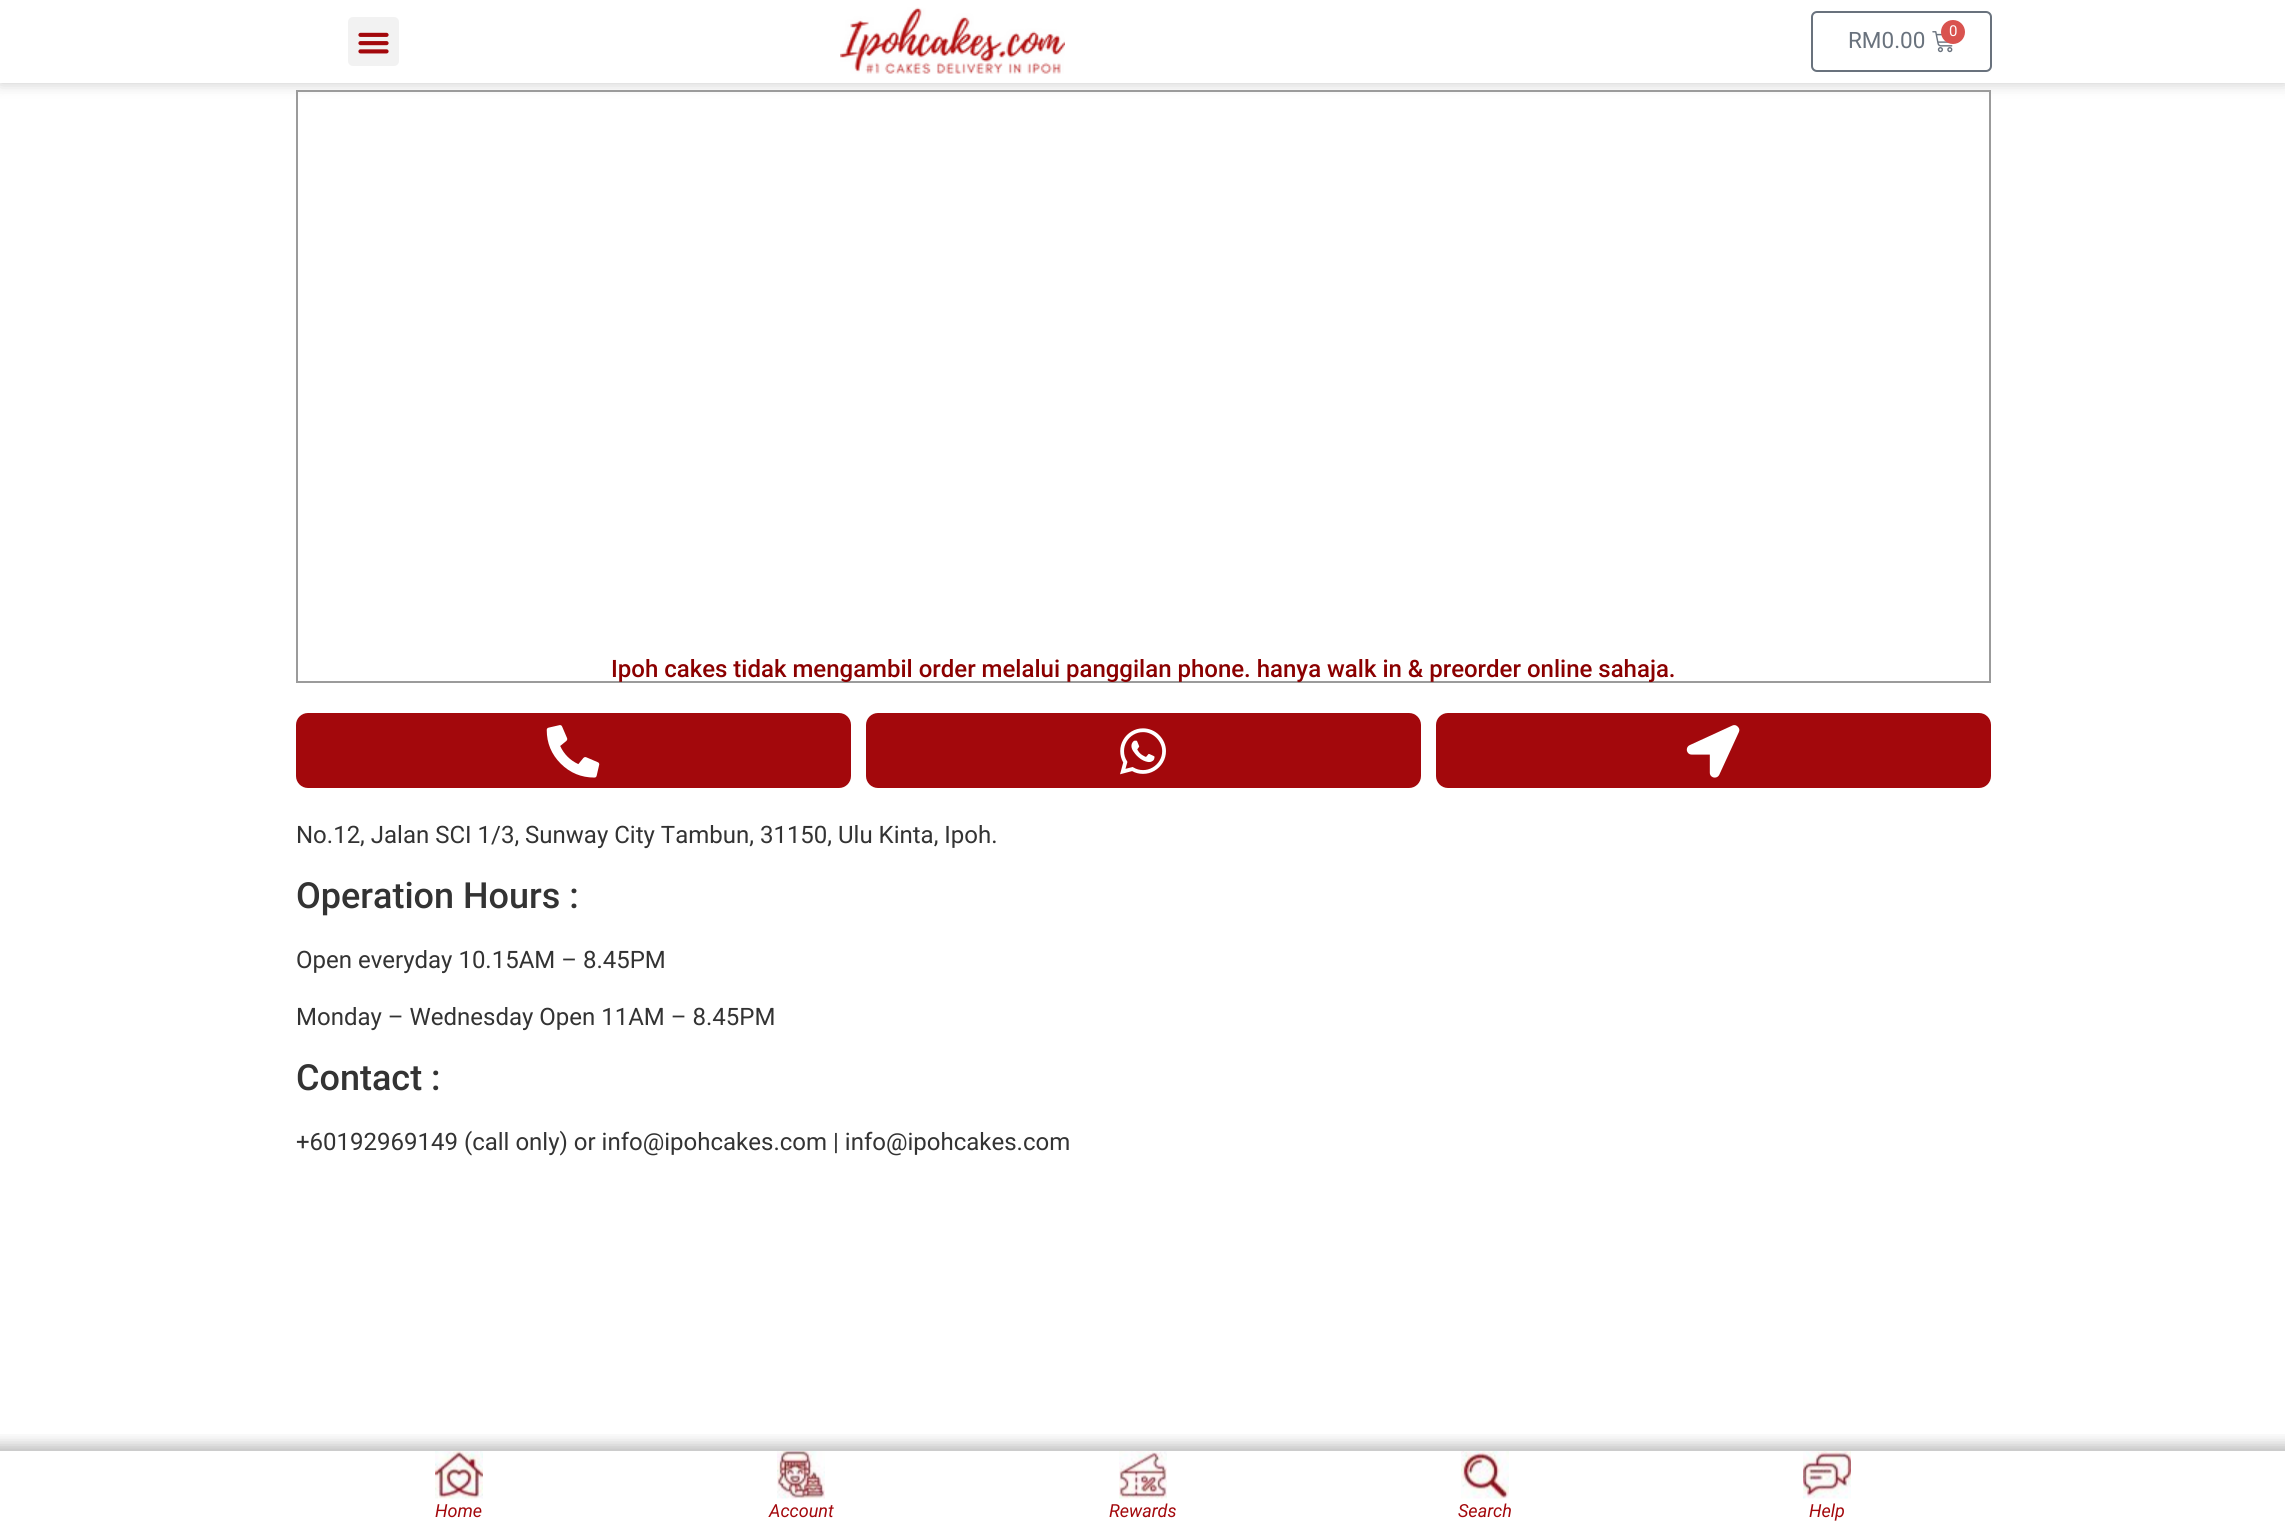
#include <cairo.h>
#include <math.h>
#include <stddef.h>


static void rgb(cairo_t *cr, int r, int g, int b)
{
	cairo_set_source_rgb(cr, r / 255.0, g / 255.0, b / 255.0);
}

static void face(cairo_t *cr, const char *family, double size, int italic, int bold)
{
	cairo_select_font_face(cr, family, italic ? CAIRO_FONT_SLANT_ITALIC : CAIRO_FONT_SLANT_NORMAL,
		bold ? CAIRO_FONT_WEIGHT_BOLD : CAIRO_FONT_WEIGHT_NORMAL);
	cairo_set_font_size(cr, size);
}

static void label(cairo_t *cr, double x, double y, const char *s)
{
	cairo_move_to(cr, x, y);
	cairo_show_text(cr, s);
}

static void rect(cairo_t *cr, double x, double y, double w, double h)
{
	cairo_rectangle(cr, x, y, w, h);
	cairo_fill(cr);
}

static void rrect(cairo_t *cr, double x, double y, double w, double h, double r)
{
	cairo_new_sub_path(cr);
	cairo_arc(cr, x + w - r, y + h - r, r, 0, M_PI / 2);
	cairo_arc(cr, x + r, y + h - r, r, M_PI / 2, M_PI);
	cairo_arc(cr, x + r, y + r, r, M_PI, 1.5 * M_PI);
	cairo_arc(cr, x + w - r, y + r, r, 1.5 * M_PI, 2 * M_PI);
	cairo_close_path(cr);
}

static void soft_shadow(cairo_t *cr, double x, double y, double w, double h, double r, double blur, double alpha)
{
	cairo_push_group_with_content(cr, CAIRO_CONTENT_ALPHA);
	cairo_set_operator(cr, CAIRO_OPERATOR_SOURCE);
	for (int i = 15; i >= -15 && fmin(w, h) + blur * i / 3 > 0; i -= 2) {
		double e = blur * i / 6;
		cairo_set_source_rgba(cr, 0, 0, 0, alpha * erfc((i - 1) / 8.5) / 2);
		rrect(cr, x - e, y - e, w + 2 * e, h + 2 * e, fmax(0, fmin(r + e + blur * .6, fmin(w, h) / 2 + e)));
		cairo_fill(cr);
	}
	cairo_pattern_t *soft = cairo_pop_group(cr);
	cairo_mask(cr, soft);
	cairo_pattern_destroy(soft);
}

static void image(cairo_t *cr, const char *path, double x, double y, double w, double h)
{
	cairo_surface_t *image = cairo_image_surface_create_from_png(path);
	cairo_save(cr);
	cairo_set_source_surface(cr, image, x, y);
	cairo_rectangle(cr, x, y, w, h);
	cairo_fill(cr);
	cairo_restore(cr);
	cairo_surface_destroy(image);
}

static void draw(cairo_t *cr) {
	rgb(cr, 255, 255, 255);
	cairo_paint(cr);
	rgb(cr, 0, 0, 0);
	soft_shadow(cr, 0, 0, 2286, 83, 0, 7.5, 0.22);
	rgb(cr, 255, 255, 255);
	rect(cr, 0, 0, 2285, 83);
	rgb(cr, 242, 242, 242);
	rrect(cr, 348, 17, 51, 49, 5);
	cairo_fill(cr);
	image(cr, "image0.png", 358, 32, 31, 22);
	image(cr, "image1.png", 840, 7, 225, 67);
	rrect(cr, 1812, 12, 179, 59, 5);
	rgb(cr, 105, 114, 125);
	cairo_stroke(cr);
	face(cr, "Roboto", 22.5, 0, 0);
	label(cr, 1848, 48, "RM0.00");
	image(cr, "image2.png", 1932, 31, 21, 22);
	rgb(cr, 217, 83, 79);
	cairo_arc(cr, 1953, 32, 12, 0, 2 * M_PI);
	cairo_fill(cr);
	face(cr, "Roboto", 15, 0, 0);
	rgb(cr, 255, 255, 255);
	label(cr, 1949, 36, "0");
	cairo_rectangle(cr, 297, 91, 1693, 591);
	rgb(cr, 155, 155, 155);
	cairo_stroke(cr);
	face(cr, "Roboto Medium", 24, 0, 0);
	rgb(cr, 139, 0, 0);
	label(cr, 611, 677, "Ipoh cakes tidak mengambil order melalui panggilan phone. hanya walk in & preorder online sahaja.");
	rgb(cr, 163, 8, 12);
	rrect(cr, 296, 713, 555, 75, 12);
	cairo_fill(cr);
	image(cr, "image3.png", 546, 725, 54, 53);
	rrect(cr, 866, 713, 555, 75, 12);
	cairo_fill(cr);
	image(cr, "image4.png", 1120, 728, 46, 47);
	rrect(cr, 1436, 713, 555, 75, 12);
	cairo_fill(cr);
	image(cr, "image5.png", 1686, 725, 54, 53);
	face(cr, "Roboto", 24, 0, 0);
	rgb(cr, 51, 51, 51);
	label(cr, 296, 843, "No.12, Jalan SCI 1/3, Sunway City Tambun, 31150, Ulu Kinta, Ipoh.");
	face(cr, "Roboto Medium", 36, 0, 0);
	label(cr, 296, 908, "Operation Hours :");
	face(cr, "Roboto", 24, 0, 0);
	label(cr, 296, 968, "Open everyday 10.15AM – 8.45PM");
	label(cr, 296, 1025, "Monday – Wednesday Open 11AM – 8.45PM");
	face(cr, "Roboto Medium", 36, 0, 0);
	label(cr, 296, 1090, "Contact :");
	face(cr, "Roboto", 24, 0, 0);
	label(cr, 296, 1150, "+60192969149 (call only) or info@ipohcakes.com | info@ipohcakes.com");
	cairo_save(cr);
	cairo_rectangle(cr, 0, 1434, 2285, 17);
	cairo_clip(cr);
	rgb(cr, 0, 0, 0);
	soft_shadow(cr, -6, 1445, 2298, 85, 0, 7.5, 0.27);
	cairo_restore(cr);
	image(cr, "image6.png", 435, 1451, 48, 48);
	face(cr, "Roboto", 18, 1, 0);
	rgb(cr, 163, 8, 12);
	label(cr, 435, 1517, "Home");
	image(cr, "image7.png", 777, 1451, 48, 48);
	label(cr, 769, 1517, "Account");
	image(cr, "image8.png", 1119, 1451, 48, 48);
	label(cr, 1109, 1517, "Rewards");
	image(cr, "image9.png", 1461, 1451, 48, 48);
	label(cr, 1458, 1517, "Search");
	image(cr, "image10.png", 1803, 1451, 48, 48);
	label(cr, 1809, 1517, "Help");
}

int main(void) {
	cairo_surface_t *surface = cairo_image_surface_create(CAIRO_FORMAT_RGB24, 2285, 1524);
	cairo_t *cr = cairo_create(surface);
	cairo_font_options_t *options = cairo_font_options_create();
	cairo_font_options_set_hint_metrics(options, CAIRO_HINT_METRICS_OFF);
	cairo_font_options_set_hint_style(options, CAIRO_HINT_STYLE_NONE);
	cairo_set_font_options(cr, options);
	cairo_set_miter_limit(cr, 4);
	draw(cr);
	cairo_surface_write_to_png(surface, "render.png");
	cairo_font_options_destroy(options);
	cairo_destroy(cr);
	cairo_surface_destroy(surface);
	return 0;
}
